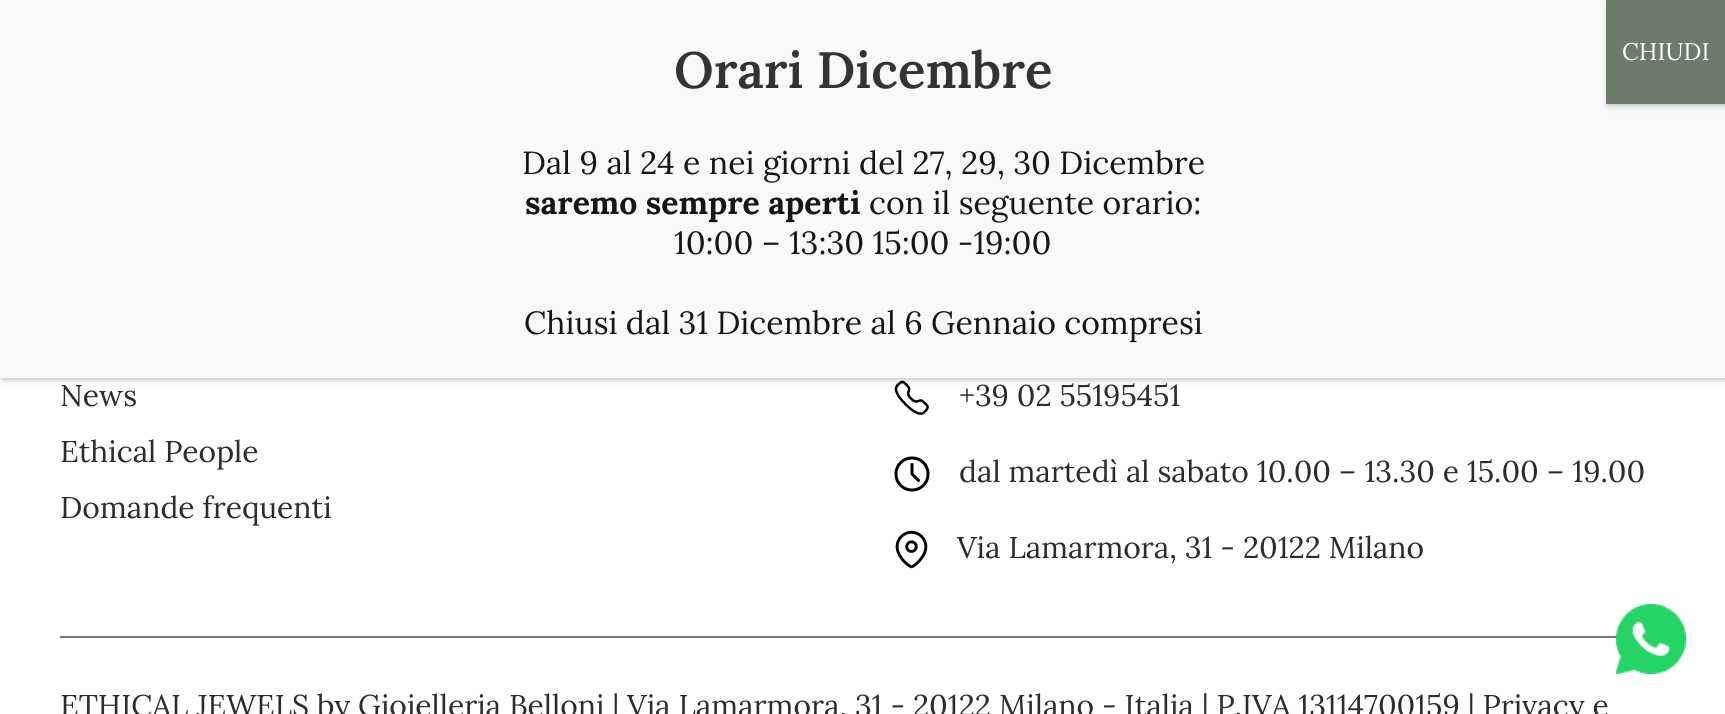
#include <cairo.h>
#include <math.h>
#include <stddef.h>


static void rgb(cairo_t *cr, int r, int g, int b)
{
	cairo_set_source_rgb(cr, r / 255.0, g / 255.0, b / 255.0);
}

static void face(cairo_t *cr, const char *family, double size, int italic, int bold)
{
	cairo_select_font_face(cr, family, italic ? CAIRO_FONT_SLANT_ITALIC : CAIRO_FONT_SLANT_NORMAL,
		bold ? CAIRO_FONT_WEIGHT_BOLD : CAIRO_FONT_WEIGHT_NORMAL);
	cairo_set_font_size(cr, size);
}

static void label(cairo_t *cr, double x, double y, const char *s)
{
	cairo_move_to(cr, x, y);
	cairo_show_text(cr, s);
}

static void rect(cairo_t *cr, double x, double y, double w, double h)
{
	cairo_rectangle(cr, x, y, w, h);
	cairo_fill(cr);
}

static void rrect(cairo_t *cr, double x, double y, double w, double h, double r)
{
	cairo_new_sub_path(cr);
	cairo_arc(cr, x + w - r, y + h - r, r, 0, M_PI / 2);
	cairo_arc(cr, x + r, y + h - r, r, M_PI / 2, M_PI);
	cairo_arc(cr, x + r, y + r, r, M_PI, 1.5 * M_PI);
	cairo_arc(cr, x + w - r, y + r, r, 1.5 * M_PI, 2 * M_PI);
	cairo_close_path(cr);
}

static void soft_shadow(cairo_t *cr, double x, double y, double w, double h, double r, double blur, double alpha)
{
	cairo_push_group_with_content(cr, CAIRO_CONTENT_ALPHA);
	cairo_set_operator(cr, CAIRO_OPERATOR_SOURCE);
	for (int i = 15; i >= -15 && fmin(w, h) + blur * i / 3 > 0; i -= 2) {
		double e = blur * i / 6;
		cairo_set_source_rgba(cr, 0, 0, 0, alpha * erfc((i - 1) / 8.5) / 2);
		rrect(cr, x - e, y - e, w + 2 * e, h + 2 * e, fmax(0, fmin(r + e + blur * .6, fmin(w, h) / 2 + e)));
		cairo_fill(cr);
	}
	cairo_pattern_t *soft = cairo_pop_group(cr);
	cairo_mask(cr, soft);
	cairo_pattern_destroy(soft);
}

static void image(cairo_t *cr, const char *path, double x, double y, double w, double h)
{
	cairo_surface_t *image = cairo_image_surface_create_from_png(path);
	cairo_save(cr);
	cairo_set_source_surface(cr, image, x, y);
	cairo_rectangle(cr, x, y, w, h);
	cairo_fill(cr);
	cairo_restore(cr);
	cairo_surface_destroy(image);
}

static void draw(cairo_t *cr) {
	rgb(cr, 255, 255, 255);
	cairo_paint(cr);
	image(cr, "image0.png", 894, 380, 35, 35);
	rgb(cr, 2, 2, 2);
	soft_shadow(cr, 2, 2, 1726, 378, 0, 3, 0.23);
	rgb(cr, 249, 249, 249);
	rect(cr, 0, 0, 1725, 378);
	face(cr, "Lora SemiBold", 51, 0, 0);
	rgb(cr, 51, 51, 51);
	label(cr, 674, 88, "Orari Dicembre");
	face(cr, "Lora", 32, 0, 0);
	rgb(cr, 22, 22, 22);
	label(cr, 522, 174, "Dal 9 al 24 e nei giorni del 27, 29, 30 Dicembre");
	face(cr, "Lora", 32, 0, 1);
	label(cr, 525, 214, "saremo sempre aperti");
	face(cr, "Lora", 32, 0, 0);
	label(cr, 869, 214, "con il seguente orario:");
	label(cr, 674, 254, "10:00 – 13:30 15:00 -19:00");
	label(cr, 524, 334, "Chiusi dal 31 Dicembre al 6 Gennaio compresi");
	rgb(cr, 2, 2, 2);
	soft_shadow(cr, 1608, 2, 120, 104, 0, 3, 0.23);
	rgb(cr, 108, 124, 107);
	rect(cr, 1606, 0, 119, 104);
	face(cr, "Lora", 24, 0, 0);
	rgb(cr, 255, 255, 255);
	label(cr, 1622, 60, "CHIUDI");
	face(cr, "Lora", 30, 0, 0);
	rgb(cr, 44, 44, 44);
	label(cr, 60, 406, "News");
	label(cr, 60, 462, "Ethical People");
	label(cr, 60, 518, "Domande frequenti");
	label(cr, 959, 406, "+39 02 55195451");
	cairo_new_path(cr);
	cairo_move_to(cr, 912, 490);
	cairo_curve_to(cr, 921, 490, 928, 483, 928, 474);
	cairo_curve_to(cr, 928, 465, 921, 458, 912, 458);
	cairo_curve_to(cr, 903, 458, 896, 465, 896, 474);
	cairo_curve_to(cr, 896, 483, 903, 490, 912, 490);
	cairo_close_path(cr);
	cairo_move_to(cr, 912, 464.5);
	cairo_line_to(cr, 912, 474);
	cairo_line_to(cr, 918.5, 480.5);
	rgb(cr, 0, 0, 0);
	cairo_set_line_width(cr, 3);
	cairo_set_line_cap(cr, CAIRO_LINE_CAP_ROUND);
	cairo_set_line_join(cr, CAIRO_LINE_JOIN_ROUND);
	cairo_stroke(cr);
	rgb(cr, 44, 44, 44);
	label(cr, 959, 482, "dal martedì al sabato 10.00 – 13.30 e 15.00 – 19.00");
	image(cr, "image1.png", 895, 530, 33, 39);
	label(cr, 957, 558, "Via Lamarmora, 31 - 20122 Milano");
	rgb(cr, 108, 124, 107);
	rect(cr, 60, 636, 1558, 2);
	rgb(cr, 44, 44, 44);
	label(cr, 60, 716, "ETHICAL JEWELS by Gioielleria Belloni | Via Lamarmora, 31 - 20122 Milano - Italia | P.IVA 13114700159 | Privacy e");
	image(cr, "image2.png", 1616, 604, 70, 70);
}

int main(void) {
	cairo_surface_t *surface = cairo_image_surface_create(CAIRO_FORMAT_RGB24, 1725, 714);
	cairo_t *cr = cairo_create(surface);
	cairo_font_options_t *options = cairo_font_options_create();
	cairo_font_options_set_hint_metrics(options, CAIRO_HINT_METRICS_OFF);
	cairo_font_options_set_hint_style(options, CAIRO_HINT_STYLE_NONE);
	cairo_set_font_options(cr, options);
	cairo_set_miter_limit(cr, 4);
	draw(cr);
	cairo_surface_write_to_png(surface, "render.png");
	cairo_font_options_destroy(options);
	cairo_destroy(cr);
	cairo_surface_destroy(surface);
	return 0;
}
